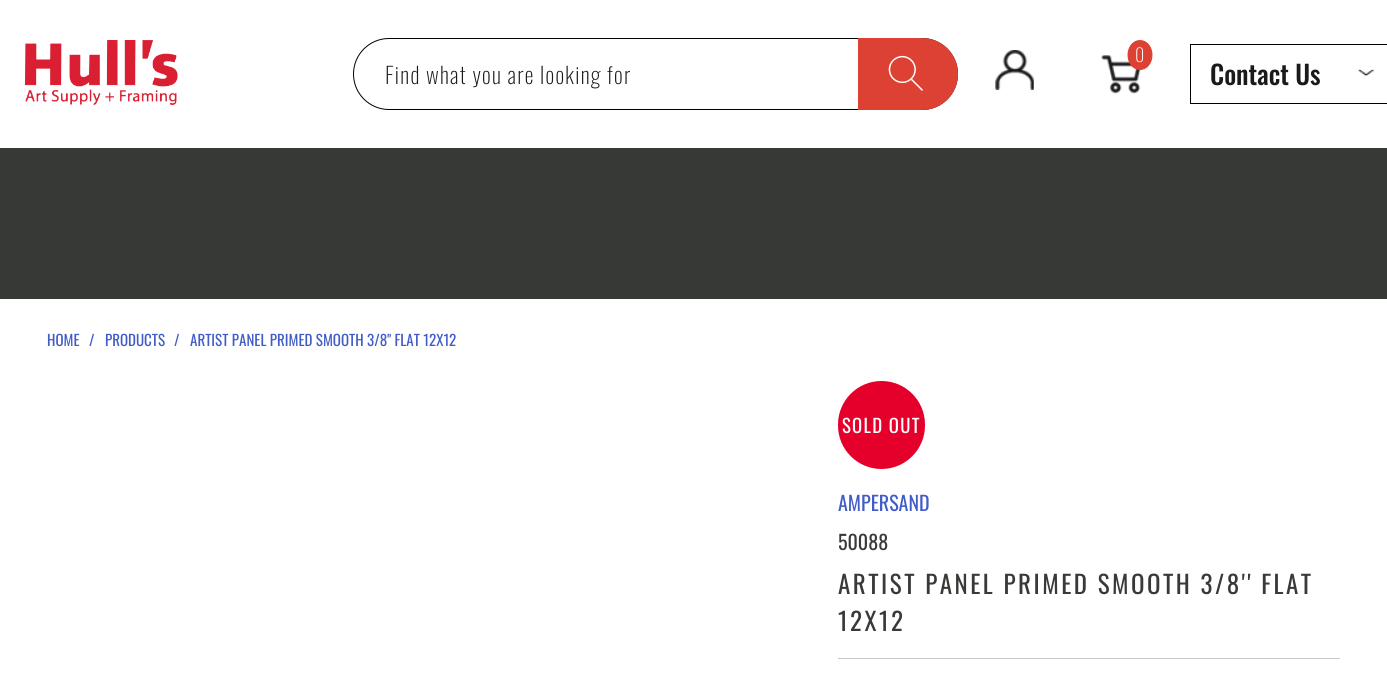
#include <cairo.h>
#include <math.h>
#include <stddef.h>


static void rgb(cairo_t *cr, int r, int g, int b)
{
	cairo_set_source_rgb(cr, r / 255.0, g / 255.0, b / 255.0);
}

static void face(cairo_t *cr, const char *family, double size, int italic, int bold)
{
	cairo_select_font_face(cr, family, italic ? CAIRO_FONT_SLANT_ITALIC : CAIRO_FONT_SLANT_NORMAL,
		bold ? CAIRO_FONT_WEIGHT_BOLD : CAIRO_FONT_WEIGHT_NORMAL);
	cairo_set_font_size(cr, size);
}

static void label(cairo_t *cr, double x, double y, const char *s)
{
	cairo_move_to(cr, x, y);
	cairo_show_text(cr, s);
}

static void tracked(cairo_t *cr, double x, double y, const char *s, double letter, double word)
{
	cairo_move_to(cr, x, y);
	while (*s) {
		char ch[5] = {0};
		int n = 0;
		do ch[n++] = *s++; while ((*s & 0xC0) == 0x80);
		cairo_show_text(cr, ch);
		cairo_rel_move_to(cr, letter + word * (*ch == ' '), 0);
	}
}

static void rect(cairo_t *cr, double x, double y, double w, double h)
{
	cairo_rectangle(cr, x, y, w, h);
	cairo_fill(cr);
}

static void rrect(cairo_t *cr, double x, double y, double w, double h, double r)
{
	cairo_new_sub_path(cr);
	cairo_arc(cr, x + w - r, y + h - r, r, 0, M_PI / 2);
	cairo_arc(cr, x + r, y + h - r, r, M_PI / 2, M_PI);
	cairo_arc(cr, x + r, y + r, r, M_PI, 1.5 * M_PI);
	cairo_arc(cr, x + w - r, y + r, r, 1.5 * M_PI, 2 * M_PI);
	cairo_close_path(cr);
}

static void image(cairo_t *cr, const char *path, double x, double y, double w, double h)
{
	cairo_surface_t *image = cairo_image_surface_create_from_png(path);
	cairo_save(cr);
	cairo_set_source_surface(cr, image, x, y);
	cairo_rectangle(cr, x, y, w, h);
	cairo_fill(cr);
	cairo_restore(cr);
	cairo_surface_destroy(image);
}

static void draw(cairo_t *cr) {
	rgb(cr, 255, 255, 255);
	cairo_paint(cr);
	image(cr, "image0.png", 25, 40, 153, 65);
	rrect(cr, 353.5, 38.5, 604, 71, 35.5);
	rgb(cr, 0, 0, 0);
	cairo_set_line_width(cr, 1);
	cairo_stroke(cr);
	face(cr, "Oswald ExtraLight", 22.5, 0, 0);
	rgb(cr, 26, 26, 26);
	tracked(cr, 385, 84, "Find what you are looking for", 1.25, 0);
	rgb(cr, 220, 65, 51);
	cairo_new_path(cr);
	cairo_move_to(cr, 858, 38);
	cairo_line_to(cr, 922, 38);
	cairo_curve_to(cr, 942, 38, 958, 54, 958, 74);
	cairo_curve_to(cr, 958, 94, 942, 110, 922, 110);
	cairo_line_to(cr, 858, 110);
	cairo_close_path(cr);
	cairo_fill(cr);
	image(cr, "image1.png", 888, 55, 35, 36);
	image(cr, "image2.png", 995, 50, 39, 40);
	image(cr, "image3.png", 1101, 55, 40, 39);
	cairo_new_path(cr);
	cairo_move_to(cr, 1140, 40);
	cairo_curve_to(cr, 1147, 40, 1152.5, 46.5, 1152.5, 55);
	cairo_curve_to(cr, 1152.5, 63.5, 1147, 70, 1140, 70);
	cairo_curve_to(cr, 1133, 70, 1127.5, 63.5, 1127.5, 55);
	cairo_curve_to(cr, 1127.5, 46.5, 1133, 40, 1140, 40);
	cairo_close_path(cr);
	cairo_fill(cr);
	face(cr, "Oswald ExtraLight", 18, 0, 0);
	rgb(cr, 255, 255, 255);
	label(cr, 1135, 62, "0");
	cairo_rectangle(cr, 1190.5, 44.5, 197, 59);
	rgb(cr, 0, 0, 0);
	cairo_stroke(cr);
	face(cr, "Oswald Medium", 26.25, 0, 0);
	rgb(cr, 26, 26, 26);
	label(cr, 1210, 85, "Contact Us");
	image(cr, "image4.png", 1357, 69, 18, 8);
	rgb(cr, 55, 57, 54);
	rect(cr, 0, 148, 1387, 151);
	face(cr, "Oswald", 15, 0, 0);
	rgb(cr, 66, 92, 199);
	label(cr, 47, 346, "HOME");
	label(cr, 89, 346, "/");
	label(cr, 105, 346, "PRODUCTS");
	label(cr, 174, 346, "/");
	label(cr, 190, 346, "ARTIST PANEL PRIMED SMOOTH 3/8'' FLAT 12X12");
	rgb(cr, 228, 0, 43);
	rrect(cr, 838, 381, 87, 88, 43.5);
	cairo_fill(cr);
	face(cr, "Oswald", 18.75, 0, 0);
	rgb(cr, 255, 255, 255);
	tracked(cr, 842, 433, "SOLD OUT", 1.25, 0);
	face(cr, "Oswald", 20, 0, 0);
	rgb(cr, 66, 92, 199);
	label(cr, 838, 511, "AMPERSAND");
	rgb(cr, 55, 58, 54);
	label(cr, 838, 550, "50088");
	face(cr, "Oswald", 25, 0, 0);
	tracked(cr, 838, 594, "ARTIST PANEL PRIMED SMOOTH 3/8'' FLAT", 2.5, 0);
	tracked(cr, 838, 631, "12X12", 2.5, 0);
	rgb(cr, 200, 200, 200);
	rect(cr, 838, 658, 502, 1);
}

int main(void) {
	cairo_surface_t *surface = cairo_image_surface_create(CAIRO_FORMAT_RGB24, 1387, 687);
	cairo_t *cr = cairo_create(surface);
	cairo_font_options_t *options = cairo_font_options_create();
	cairo_font_options_set_hint_metrics(options, CAIRO_HINT_METRICS_OFF);
	cairo_font_options_set_hint_style(options, CAIRO_HINT_STYLE_NONE);
	cairo_set_font_options(cr, options);
	cairo_set_miter_limit(cr, 4);
	draw(cr);
	cairo_surface_write_to_png(surface, "render.png");
	cairo_font_options_destroy(options);
	cairo_destroy(cr);
	cairo_surface_destroy(surface);
	return 0;
}
